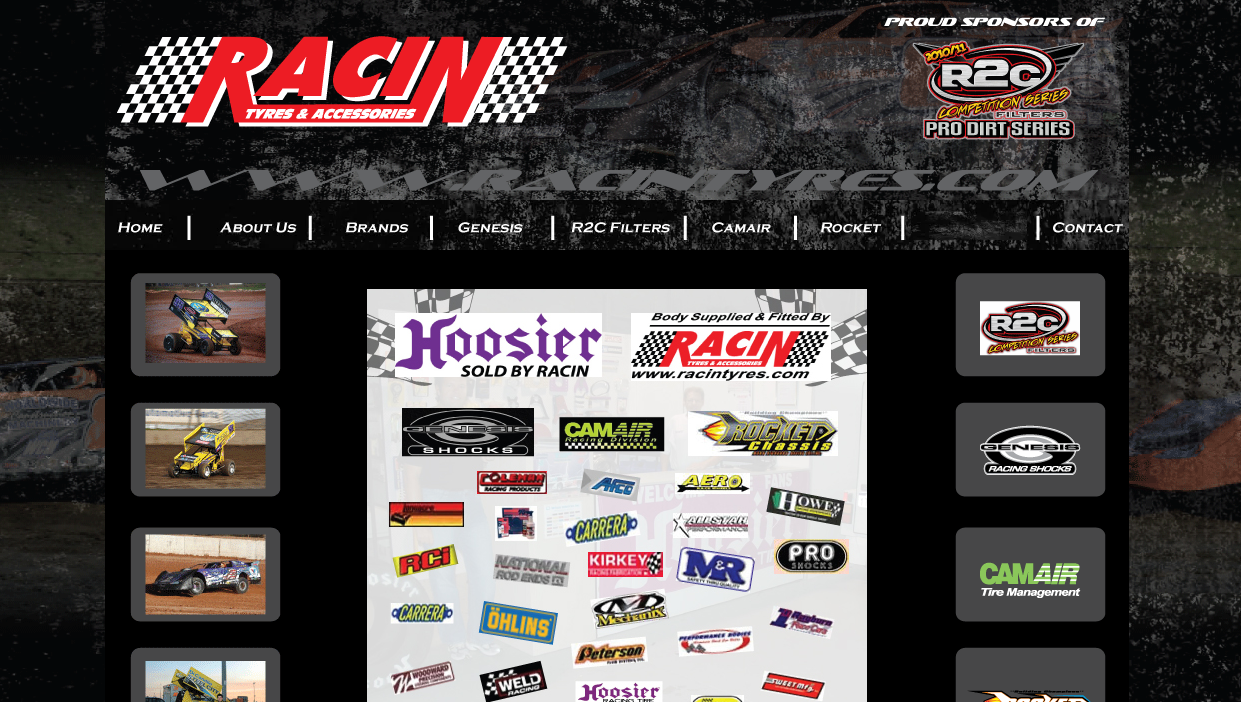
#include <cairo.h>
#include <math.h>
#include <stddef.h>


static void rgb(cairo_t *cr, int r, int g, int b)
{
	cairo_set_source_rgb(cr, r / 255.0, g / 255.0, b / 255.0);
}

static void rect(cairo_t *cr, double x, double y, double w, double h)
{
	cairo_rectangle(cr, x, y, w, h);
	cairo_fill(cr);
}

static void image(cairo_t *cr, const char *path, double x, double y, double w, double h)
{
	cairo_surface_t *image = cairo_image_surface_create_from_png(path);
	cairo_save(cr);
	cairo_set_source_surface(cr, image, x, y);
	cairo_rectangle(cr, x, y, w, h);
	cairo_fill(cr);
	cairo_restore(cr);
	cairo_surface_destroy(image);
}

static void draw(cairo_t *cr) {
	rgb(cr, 255, 255, 255);
	cairo_paint(cr);
	image(cr, "image0.png", 0, 0, 1241, 702);
	rgb(cr, 0, 0, 0);
	rect(cr, 105, 250, 1024, 452);
	image(cr, "image1.png", 105, 0, 1024, 200);
	image(cr, "image2.png", 105, 200, 1024, 50);
	image(cr, "image3.png", 130, 273, 151, 429);
	image(cr, "image4.png", 367, 289, 500, 413);
	image(cr, "image5.png", 955, 273, 151, 429);
}

int main(void) {
	cairo_surface_t *surface = cairo_image_surface_create(CAIRO_FORMAT_RGB24, 1241, 702);
	cairo_t *cr = cairo_create(surface);
	cairo_font_options_t *options = cairo_font_options_create();
	cairo_font_options_set_hint_metrics(options, CAIRO_HINT_METRICS_OFF);
	cairo_font_options_set_hint_style(options, CAIRO_HINT_STYLE_NONE);
	cairo_set_font_options(cr, options);
	cairo_set_miter_limit(cr, 4);
	draw(cr);
	cairo_surface_write_to_png(surface, "render.png");
	cairo_font_options_destroy(options);
	cairo_destroy(cr);
	cairo_surface_destroy(surface);
	return 0;
}
